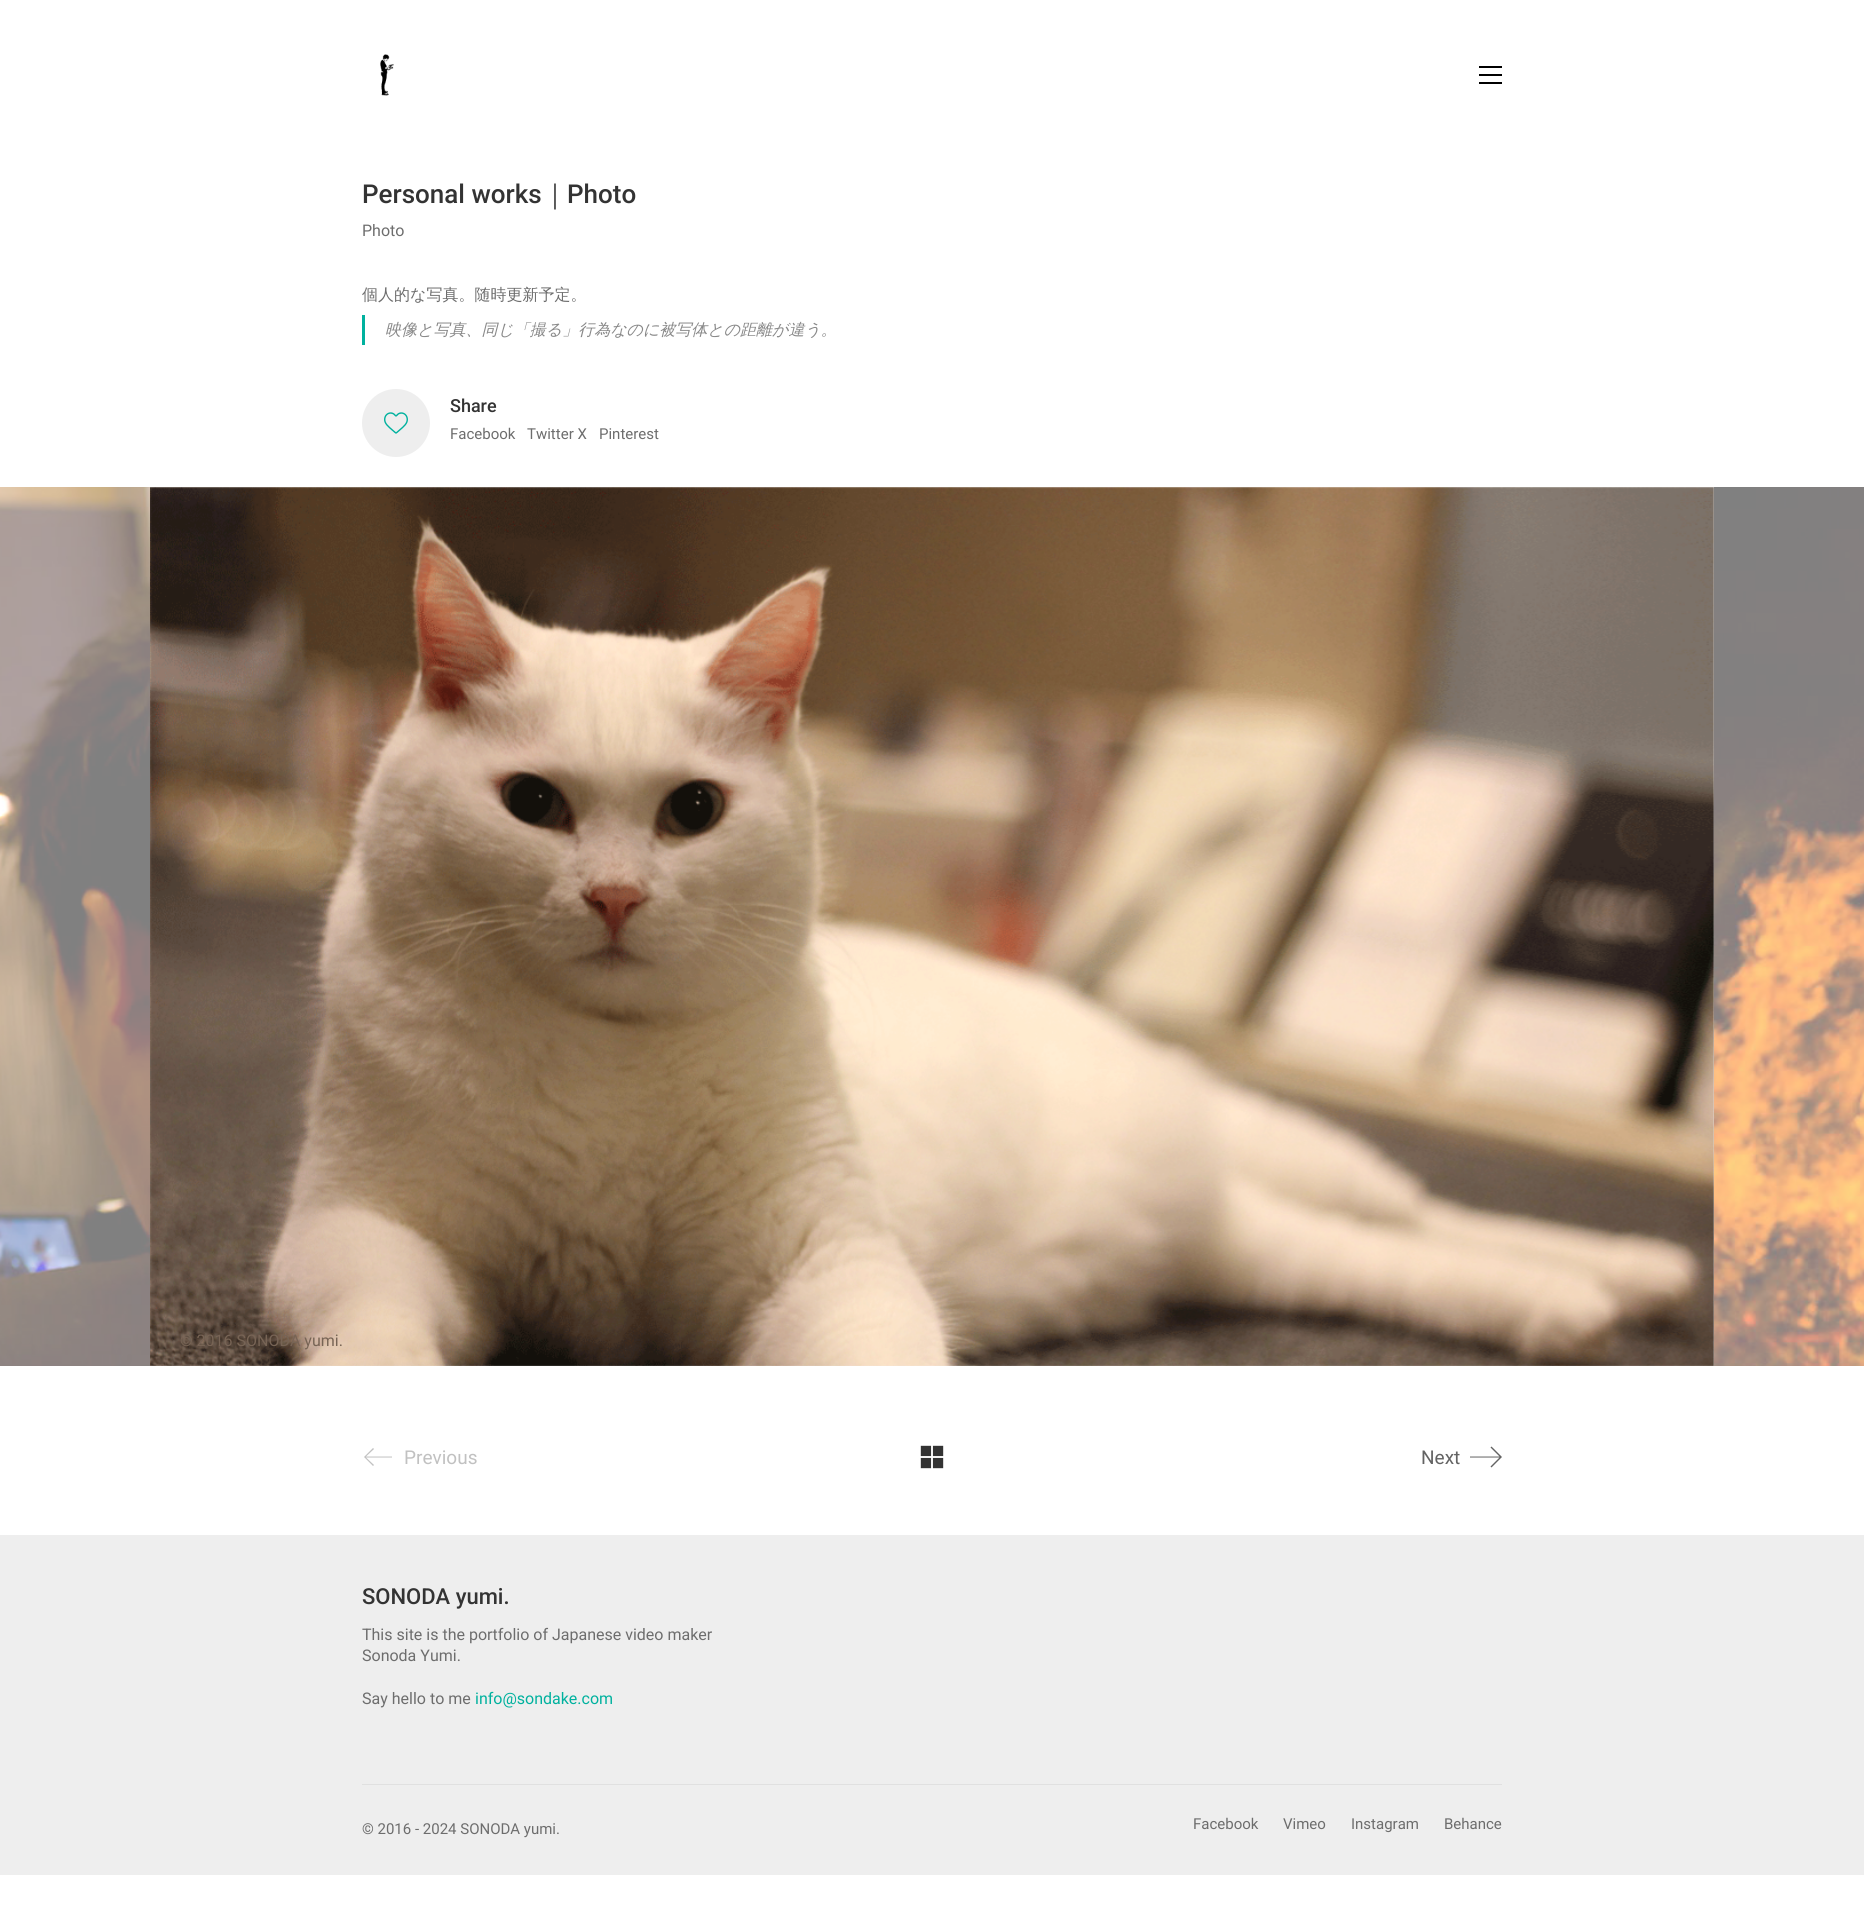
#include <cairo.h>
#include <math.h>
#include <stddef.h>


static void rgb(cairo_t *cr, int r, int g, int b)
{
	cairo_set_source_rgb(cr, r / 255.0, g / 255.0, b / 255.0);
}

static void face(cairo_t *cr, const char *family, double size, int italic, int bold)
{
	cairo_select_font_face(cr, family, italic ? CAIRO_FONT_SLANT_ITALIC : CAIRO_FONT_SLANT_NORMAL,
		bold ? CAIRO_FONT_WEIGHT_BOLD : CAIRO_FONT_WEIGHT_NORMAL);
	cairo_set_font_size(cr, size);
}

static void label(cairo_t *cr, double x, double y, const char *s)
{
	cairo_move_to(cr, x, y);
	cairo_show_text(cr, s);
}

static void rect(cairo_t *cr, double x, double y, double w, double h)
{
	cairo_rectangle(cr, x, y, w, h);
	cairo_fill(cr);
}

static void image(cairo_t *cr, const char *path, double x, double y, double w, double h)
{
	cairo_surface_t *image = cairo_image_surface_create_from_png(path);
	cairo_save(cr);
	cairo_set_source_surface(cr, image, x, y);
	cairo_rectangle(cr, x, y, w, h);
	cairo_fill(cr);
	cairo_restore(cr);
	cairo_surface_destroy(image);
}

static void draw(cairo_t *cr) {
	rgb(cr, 255, 255, 255);
	cairo_paint(cr);
	image(cr, "image0.png", 380, 54, 14, 42);
	rgb(cr, 0, 0, 0);
	rect(cr, 1479, 66, 23, 2);
	rect(cr, 1479, 74, 23, 2);
	rect(cr, 1479, 82, 23, 2);
	face(cr, "Roboto Medium", 26, 0, 0);
	rgb(cr, 51, 51, 51);
	label(cr, 362, 203, "Personal works");
	face(cr, "WenQuanYi Zen Hei Medium", 26, 0, 0);
	label(cr, 542, 203, "｜");
	face(cr, "Roboto Medium", 26, 0, 0);
	label(cr, 567, 203, "Photo");
	face(cr, "Roboto", 16, 0, 0);
	rgb(cr, 109, 109, 109);
	label(cr, 362, 236, "Photo");
	face(cr, "WenQuanYi Zen Hei Medium", 16, 0, 0);
	label(cr, 362, 300, "個人的な写真。随時更新予定。");
	rgb(cr, 0, 177, 158);
	rect(cr, 362, 315, 3, 30);
	face(cr, "WenQuanYi Zen Hei Medium", 16, 1, 0);
	rgb(cr, 136, 136, 136);
	label(cr, 385, 335, "映像と写真、同じ「撮る」行為なのに被写体との距離が違う。");
	rgb(cr, 238, 238, 238);
	cairo_new_path(cr);
	cairo_arc(cr, 396, 423, 34, 0, 2 * M_PI);
	cairo_fill(cr);
	image(cr, "image1.png", 384, 412, 24, 22);
	face(cr, "Roboto Medium", 18, 0, 0);
	rgb(cr, 51, 51, 51);
	label(cr, 450, 412, "Share");
	face(cr, "Roboto", 15, 0, 0);
	rgb(cr, 109, 109, 109);
	label(cr, 450, 439, "Facebook");
	label(cr, 527, 439, "Twitter X");
	label(cr, 599, 439, "Pinterest");
	image(cr, "image2.png", 0, 487, 150, 879);
	rgb(cr, 238, 238, 238);
	rect(cr, 150, 487, 1564, 879);
	image(cr, "image3.png", 150, 487, 1564, 879);
	face(cr, "Roboto", 16, 0, 0);
	rgb(cr, 119, 100, 85);
	label(cr, 180, 1346, "© 2016 SONODA yumi.");
	image(cr, "image4.png", 1714, 487, 150, 879);
	rgb(cr, 193, 193, 193);
	cairo_new_path(cr);
	cairo_move_to(cr, 392, 1456.5);
	cairo_line_to(cr, 366, 1456.5);
	cairo_line_to(cr, 374, 1449);
	cairo_line_to(cr, 373, 1448);
	cairo_line_to(cr, 364, 1457);
	cairo_line_to(cr, 373, 1466);
	cairo_line_to(cr, 374, 1465);
	cairo_line_to(cr, 366, 1457.5);
	cairo_line_to(cr, 392, 1457.5);
	cairo_close_path(cr);
	cairo_fill(cr);
	face(cr, "Roboto", 19, 0, 0);
	label(cr, 404, 1464, "Previous");
	image(cr, "image5.png", 920, 1445, 24, 24);
	rgb(cr, 99, 99, 99);
	label(cr, 1421, 1464, "Next");
	cairo_new_path(cr);
	cairo_move_to(cr, 1491.5, 1446.5);
	cairo_line_to(cr, 1490.5, 1447.5);
	cairo_line_to(cr, 1499.5, 1456.5);
	cairo_line_to(cr, 1470, 1456.5);
	cairo_line_to(cr, 1470, 1457.5);
	cairo_line_to(cr, 1499.5, 1457.5);
	cairo_line_to(cr, 1490.5, 1466.5);
	cairo_line_to(cr, 1491.5, 1467.5);
	cairo_line_to(cr, 1502, 1457);
	cairo_close_path(cr);
	cairo_fill(cr);
	rgb(cr, 238, 238, 238);
	rect(cr, 0, 1535, 1864, 340);
	face(cr, "Roboto Medium", 22, 0, 0);
	rgb(cr, 51, 51, 51);
	label(cr, 362, 1604, "SONODA yumi.");
	face(cr, "Roboto", 16, 0, 0);
	rgb(cr, 109, 109, 109);
	label(cr, 362, 1640, "This site is the portfolio of Japanese video maker");
	label(cr, 362, 1661, "Sonoda Yumi.");
	label(cr, 362, 1704, "Say hello to me");
	rgb(cr, 0, 177, 158);
	label(cr, 475, 1704, "info@sondake.com");
	rgb(cr, 224, 224, 224);
	rect(cr, 362, 1784, 1140, 1);
	face(cr, "Roboto", 15, 0, 0);
	rgb(cr, 109, 109, 109);
	label(cr, 362, 1834, "© 2016 - 2024 SONODA yumi.");
	label(cr, 1193, 1829, "Facebook");
	label(cr, 1283, 1829, "Vimeo");
	label(cr, 1351, 1829, "Instagram");
	label(cr, 1444, 1829, "Behance");
}

int main(void) {
	cairo_surface_t *surface = cairo_image_surface_create(CAIRO_FORMAT_RGB24, 1864, 1926);
	cairo_t *cr = cairo_create(surface);
	cairo_font_options_t *options = cairo_font_options_create();
	cairo_font_options_set_hint_metrics(options, CAIRO_HINT_METRICS_OFF);
	cairo_font_options_set_hint_style(options, CAIRO_HINT_STYLE_NONE);
	cairo_set_font_options(cr, options);
	cairo_set_miter_limit(cr, 4);
	draw(cr);
	cairo_surface_write_to_png(surface, "render.png");
	cairo_font_options_destroy(options);
	cairo_destroy(cr);
	cairo_surface_destroy(surface);
	return 0;
}
